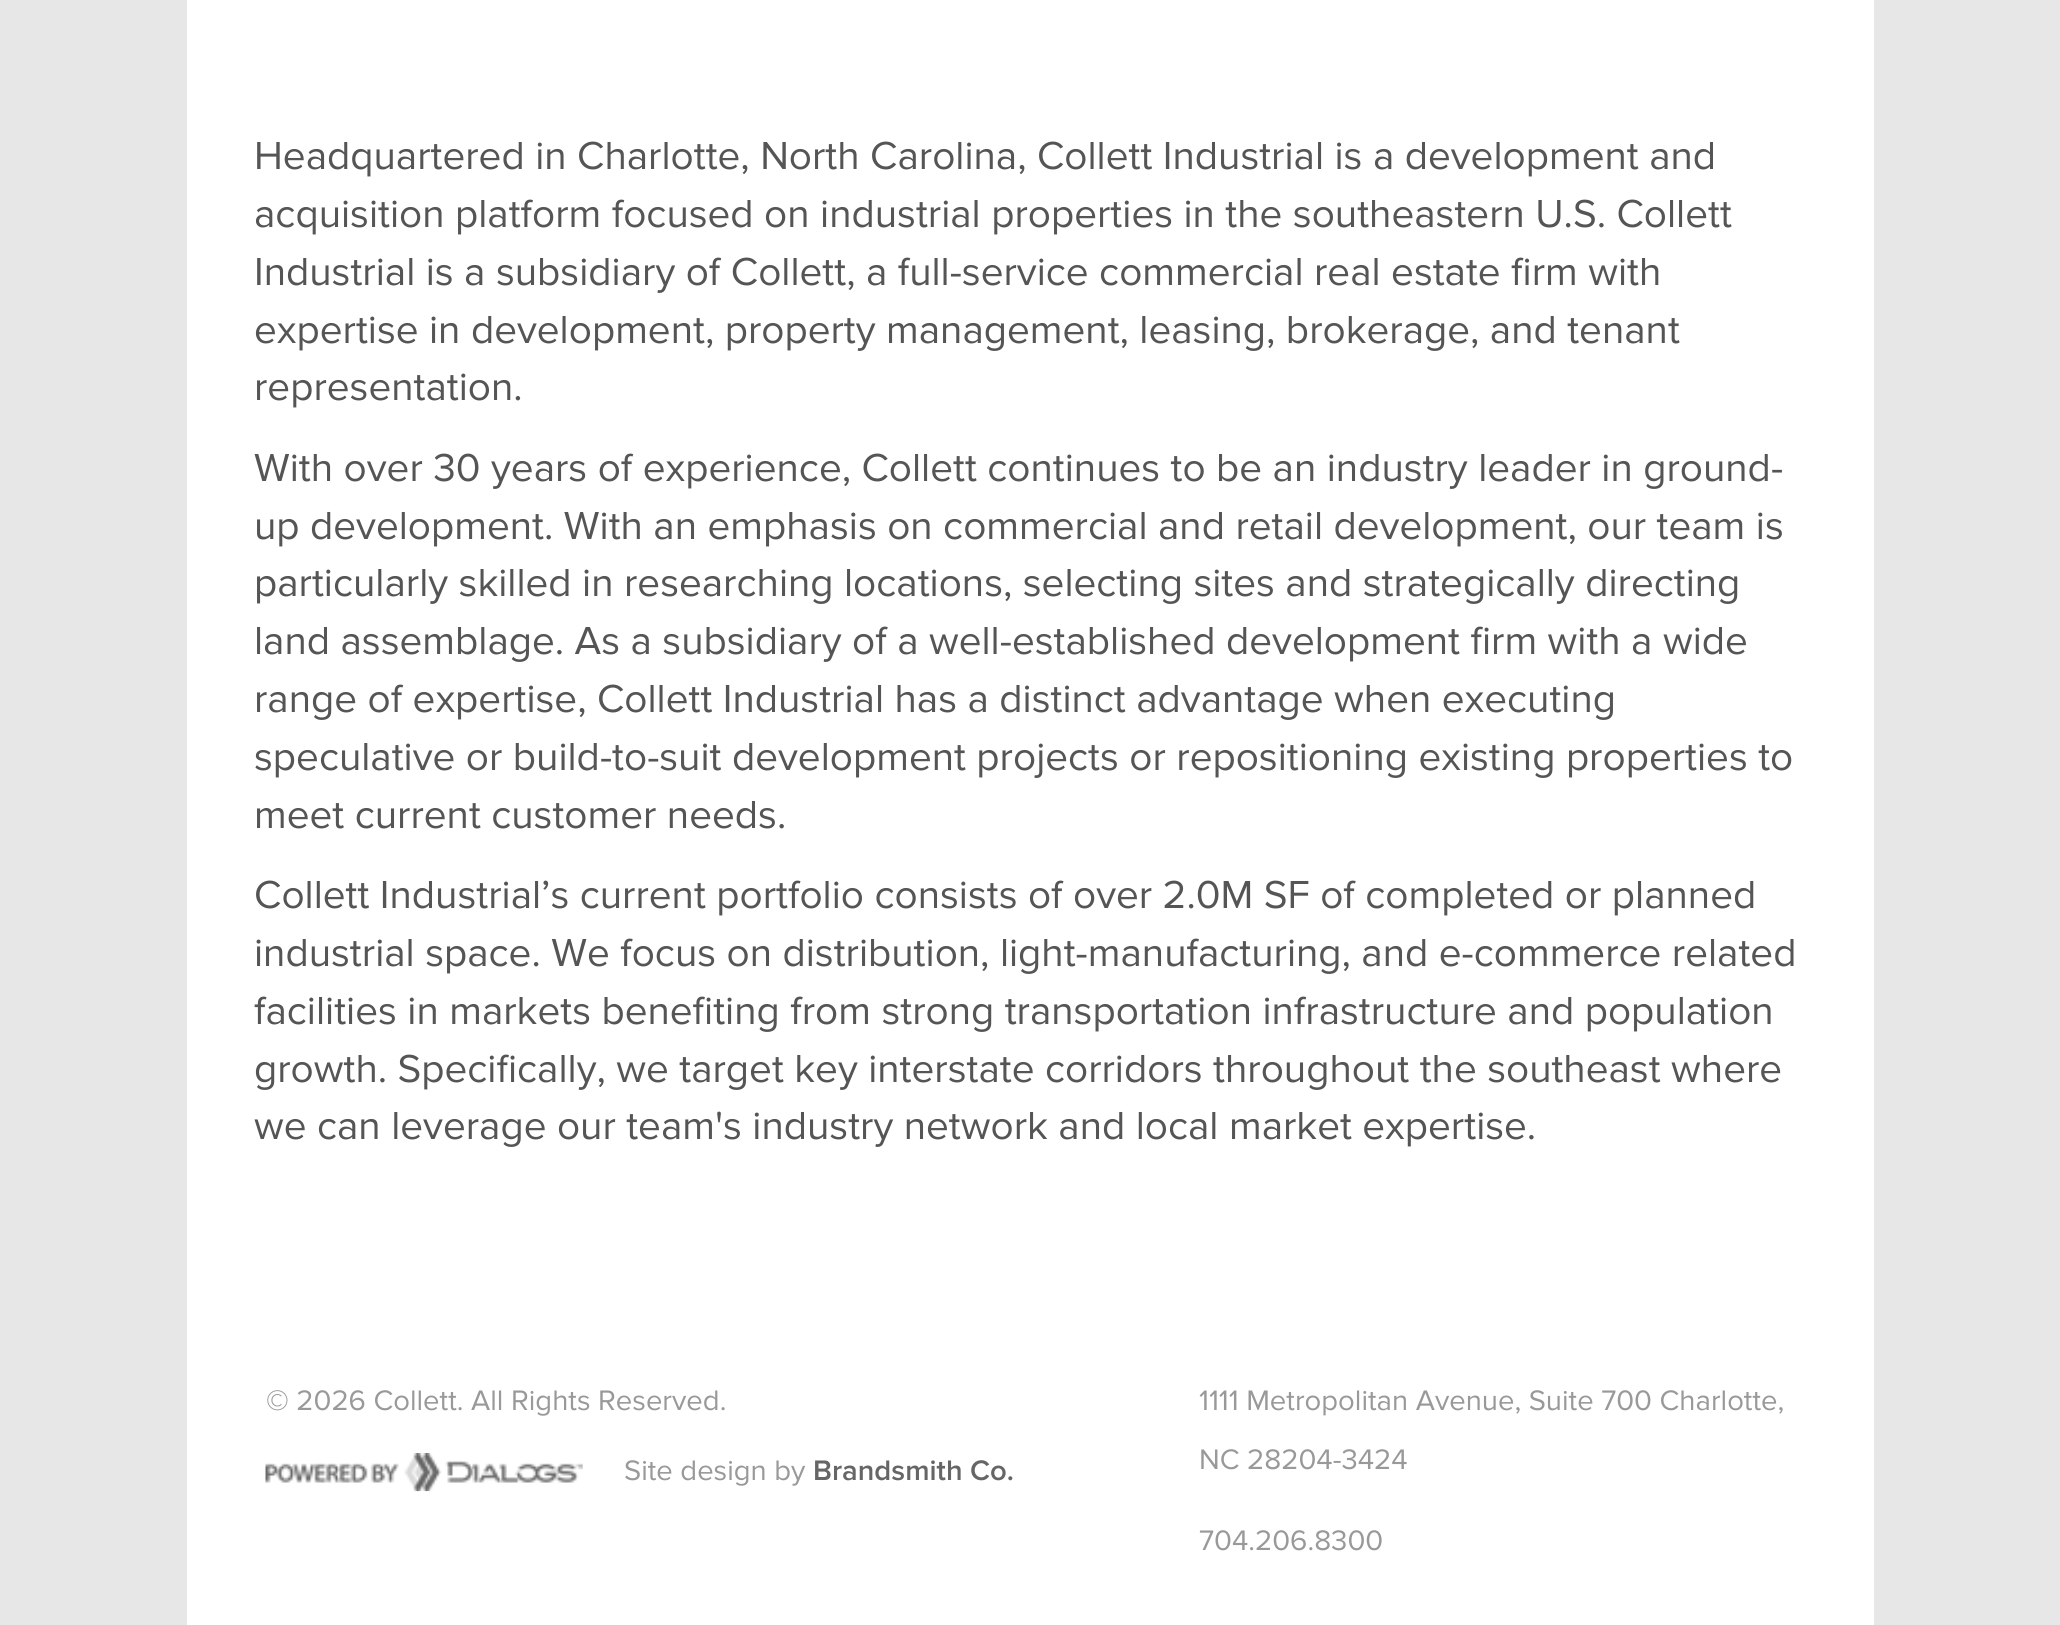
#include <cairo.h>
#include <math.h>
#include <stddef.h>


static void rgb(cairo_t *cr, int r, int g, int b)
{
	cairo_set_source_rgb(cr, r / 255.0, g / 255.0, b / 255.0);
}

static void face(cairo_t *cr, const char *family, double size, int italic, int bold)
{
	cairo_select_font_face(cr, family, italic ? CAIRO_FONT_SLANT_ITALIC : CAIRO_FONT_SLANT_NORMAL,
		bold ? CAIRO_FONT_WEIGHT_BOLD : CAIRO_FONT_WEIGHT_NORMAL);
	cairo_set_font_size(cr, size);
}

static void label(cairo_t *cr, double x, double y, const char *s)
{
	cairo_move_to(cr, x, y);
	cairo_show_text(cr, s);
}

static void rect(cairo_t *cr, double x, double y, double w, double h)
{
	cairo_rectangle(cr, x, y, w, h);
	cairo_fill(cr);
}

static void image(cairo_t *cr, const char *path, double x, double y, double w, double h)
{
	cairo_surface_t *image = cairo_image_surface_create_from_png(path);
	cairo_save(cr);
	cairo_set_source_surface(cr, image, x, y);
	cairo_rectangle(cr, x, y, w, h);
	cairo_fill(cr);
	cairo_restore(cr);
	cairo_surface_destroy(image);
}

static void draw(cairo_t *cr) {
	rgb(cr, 231, 231, 231);
	cairo_paint(cr);
	rgb(cr, 255, 255, 255);
	rect(cr, 187, 0, 1687, 1625);
	face(cr, "Proxima Nova", 40.5, 0, 0);
	rgb(cr, 85, 85, 85);
	label(cr, 254, 169, "Headquartered in Charlotte, North Carolina, Collett Industrial is a development and");
	label(cr, 254, 227, "acquisition platform focused on industrial properties in the southeastern U.S. Collett");
	label(cr, 254, 285, "Industrial is a subsidiary of Collett, a full-service commercial real estate firm with");
	label(cr, 254, 343, "expertise in development, property management, leasing, brokerage, and tenant");
	label(cr, 254, 400, "representation.");
	label(cr, 254, 481, "With over 30 years of experience, Collett continues to be an industry leader in ground-");
	label(cr, 254, 539, "up development. With an emphasis on commercial and retail development, our team is");
	label(cr, 254, 596, "particularly skilled in researching locations, selecting sites and strategically directing");
	label(cr, 254, 654, "land assemblage. As a subsidiary of a well-established development firm with a wide");
	label(cr, 254, 712, "range of expertise, Collett Industrial has a distinct advantage when executing");
	label(cr, 254, 770, "speculative or build-to-suit development projects or repositioning existing properties to");
	label(cr, 254, 828, "meet current customer needs.");
	label(cr, 254, 908, "Collett Industrial’s current portfolio consists of over 2.0M SF of completed or planned");
	label(cr, 254, 966, "industrial space. We focus on distribution, light-manufacturing, and e-commerce related");
	label(cr, 254, 1024, "facilities in markets benefiting from strong transportation infrastructure and population");
	label(cr, 254, 1082, "growth. Specifically, we target key interstate corridors throughout the southeast where");
	label(cr, 254, 1139, "we can leverage our team's industry network and local market expertise.");
	face(cr, "Proxima Nova", 29.25, 0, 0);
	rgb(cr, 153, 153, 153);
	label(cr, 266, 1410, "© 2026 Collett. All Rights Reserved.");
	image(cr, "image0.png", 265, 1453, 318, 39);
	label(cr, 624, 1480, "Site design by");
	face(cr, "Proxima Nova SemiBold", 29.25, 0, 0);
	rgb(cr, 102, 102, 102);
	label(cr, 813, 1480, "Brandsmith Co.");
	face(cr, "Proxima Nova", 29.25, 0, 0);
	rgb(cr, 153, 153, 153);
	label(cr, 1199, 1410, "1111 Metropolitan Avenue, Suite 700 Charlotte,");
	label(cr, 1199, 1469, "NC 28204-3424");
	label(cr, 1199, 1550, "704.206.8300");
}

int main(void) {
	cairo_surface_t *surface = cairo_image_surface_create(CAIRO_FORMAT_RGB24, 2060, 1625);
	cairo_t *cr = cairo_create(surface);
	cairo_font_options_t *options = cairo_font_options_create();
	cairo_font_options_set_hint_metrics(options, CAIRO_HINT_METRICS_OFF);
	cairo_font_options_set_hint_style(options, CAIRO_HINT_STYLE_NONE);
	cairo_set_font_options(cr, options);
	cairo_set_miter_limit(cr, 4);
	draw(cr);
	cairo_surface_write_to_png(surface, "render.png");
	cairo_font_options_destroy(options);
	cairo_destroy(cr);
	cairo_surface_destroy(surface);
	return 0;
}
